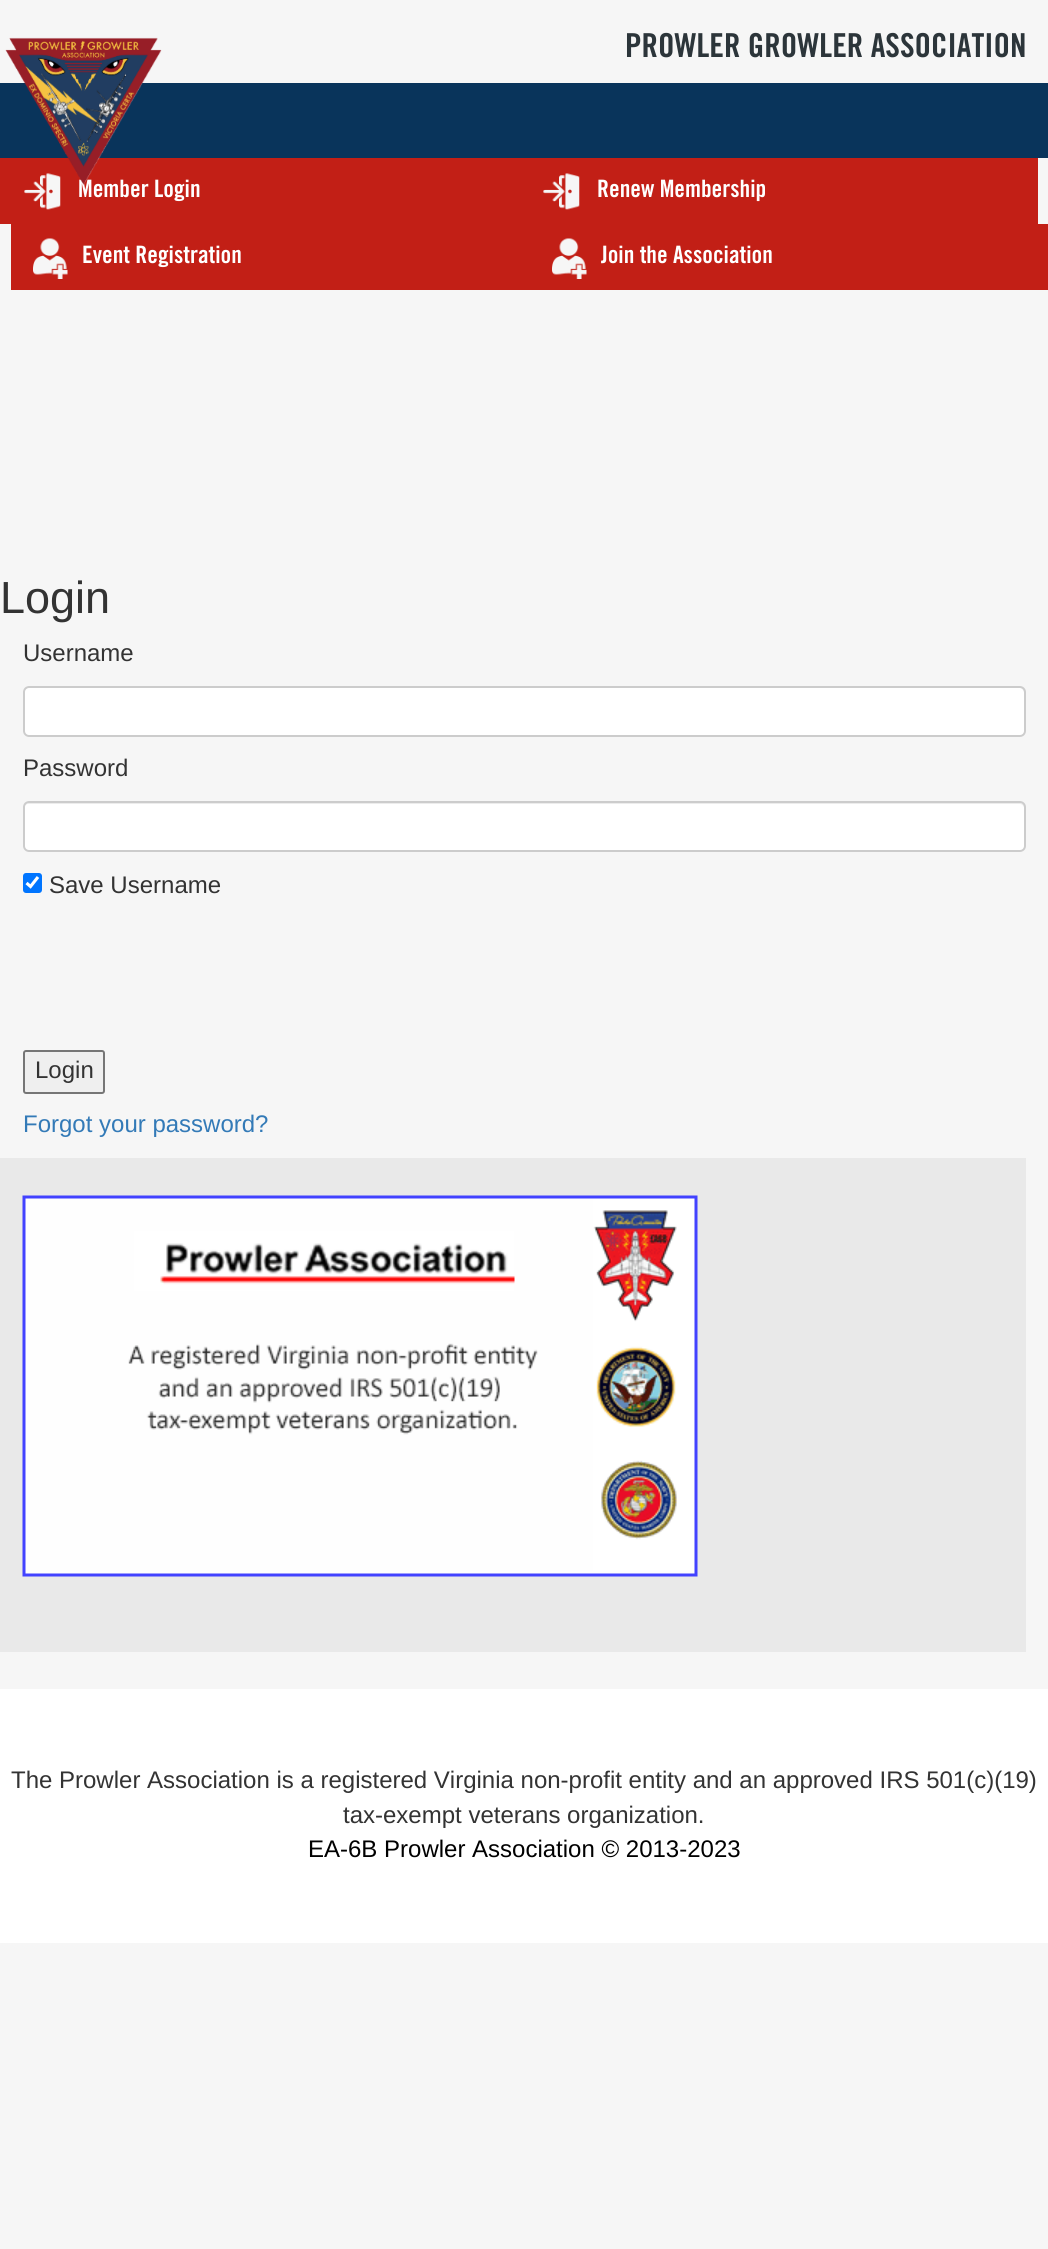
#include <cairo.h>
#include <math.h>
#include <stddef.h>


static void rgb(cairo_t *cr, int r, int g, int b)
{
	cairo_set_source_rgb(cr, r / 255.0, g / 255.0, b / 255.0);
}

static void face(cairo_t *cr, const char *family, double size, int italic, int bold)
{
	cairo_select_font_face(cr, family, italic ? CAIRO_FONT_SLANT_ITALIC : CAIRO_FONT_SLANT_NORMAL,
		bold ? CAIRO_FONT_WEIGHT_BOLD : CAIRO_FONT_WEIGHT_NORMAL);
	cairo_set_font_size(cr, size);
}

static void label(cairo_t *cr, double x, double y, const char *s)
{
	cairo_move_to(cr, x, y);
	cairo_show_text(cr, s);
}

static void rect(cairo_t *cr, double x, double y, double w, double h)
{
	cairo_rectangle(cr, x, y, w, h);
	cairo_fill(cr);
}

static void rrect(cairo_t *cr, double x, double y, double w, double h, double r)
{
	cairo_new_sub_path(cr);
	cairo_arc(cr, x + w - r, y + h - r, r, 0, M_PI / 2);
	cairo_arc(cr, x + r, y + h - r, r, M_PI / 2, M_PI);
	cairo_arc(cr, x + r, y + r, r, M_PI, 1.5 * M_PI);
	cairo_arc(cr, x + w - r, y + r, r, 1.5 * M_PI, 2 * M_PI);
	cairo_close_path(cr);
}

static void image(cairo_t *cr, const char *path, double x, double y, double w, double h)
{
	cairo_surface_t *image = cairo_image_surface_create_from_png(path);
	cairo_save(cr);
	cairo_set_source_surface(cr, image, x, y);
	cairo_rectangle(cr, x, y, w, h);
	cairo_fill(cr);
	cairo_restore(cr);
	cairo_surface_destroy(image);
}

static void draw(cairo_t *cr) {
	rgb(cr, 246, 246, 246);
	cairo_paint(cr);
	rgb(cr, 9, 52, 91);
	rect(cr, 0, 83, 1048, 75);
	rgb(cr, 194, 31, 22);
	rect(cr, 0, 158, 1038, 66);
	image(cr, "image1.png", 24, 173, 37, 37);
	face(cr, "Trade Gothic", 24, 0, 1);
	rgb(cr, 255, 255, 255);
	label(cr, 78, 197, "Member Login");
	image(cr, "image0.png", 5, 37, 157, 148);
	face(cr, "Trade Gothic", 33, 0, 1);
	rgb(cr, 44, 53, 58);
	label(cr, 625, 57, "PROWLER GROWLER ASSOCIATION");
	image(cr, "image1.png", 543, 173, 37, 37);
	face(cr, "Trade Gothic", 24, 0, 1);
	rgb(cr, 255, 255, 255);
	label(cr, 597, 197, "Renew Membership");
	rgb(cr, 194, 31, 22);
	rect(cr, 11, 224, 1037, 66);
	image(cr, "image2.png", 33, 238, 35, 41);
	rgb(cr, 255, 255, 255);
	label(cr, 82, 263, "Event Registration");
	image(cr, "image2.png", 552, 238, 35, 41);
	label(cr, 601, 263, "Join the Association");
	face(cr, "Liberation Sans", 45, 0, 0);
	rgb(cr, 51, 51, 51);
	label(cr, 0, 613, "Login");
	face(cr, "Liberation Sans", 24, 0, 0);
	label(cr, 23, 661, "Username");
	rgb(cr, 255, 255, 255);
	rrect(cr, 23, 686, 1003, 51, 6);
	cairo_fill(cr);
	rgb(cr, 236, 236, 236);
	cairo_new_path(cr);
	cairo_move_to(cr, 28, 688);
	cairo_line_to(cr, 1020, 688);
	cairo_curve_to(cr, 1022, 688, 1024, 691, 1024, 693);
	cairo_line_to(cr, 1024, 733);
	cairo_curve_to(cr, 1025, 732, 1025, 731, 1025, 730);
	cairo_line_to(cr, 1025, 692);
	cairo_curve_to(cr, 1025, 689, 1023, 687, 1020, 687);
	cairo_line_to(cr, 29, 687);
	cairo_curve_to(cr, 26, 687, 24, 689, 24, 692);
	cairo_line_to(cr, 24, 693);
	cairo_curve_to(cr, 24, 691, 26, 688, 28, 688);
	cairo_close_path(cr);
	cairo_fill(cr);
	rrect(cr, 24, 687, 1001, 49, 5);
	rgb(cr, 204, 204, 204);
	cairo_stroke(cr);
	rgb(cr, 51, 51, 51);
	label(cr, 23, 776, "Password");
	rgb(cr, 255, 255, 255);
	rrect(cr, 23, 801, 1003, 51, 6);
	cairo_fill(cr);
	rgb(cr, 236, 236, 236);
	cairo_new_path(cr);
	cairo_move_to(cr, 28, 804);
	cairo_line_to(cr, 1020, 804);
	cairo_curve_to(cr, 1022, 804, 1024, 806, 1024, 808);
	cairo_line_to(cr, 1024, 849);
	cairo_curve_to(cr, 1025, 848, 1025, 847, 1025, 846);
	cairo_line_to(cr, 1025, 808);
	cairo_curve_to(cr, 1025, 805, 1023, 803, 1020, 803);
	cairo_line_to(cr, 29, 803);
	cairo_curve_to(cr, 26, 803, 24, 805, 24, 808);
	cairo_curve_to(cr, 24, 806, 26, 804, 28, 804);
	cairo_close_path(cr);
	cairo_fill(cr);
	rrect(cr, 24, 802, 1001, 49, 5);
	rgb(cr, 204, 204, 204);
	cairo_stroke(cr);
	rgb(cr, 0, 117, 255);
	rrect(cr, 23, 873, 19, 20, 3);
	cairo_fill(cr);
	cairo_new_path(cr);
	cairo_move_to(cr, 26.5, 883);
	cairo_line_to(cr, 30.5, 886.5);
	cairo_line_to(cr, 38, 877);
	rgb(cr, 255, 255, 255);
	cairo_set_line_width(cr, 3.1);
	cairo_stroke(cr);
	rgb(cr, 51, 51, 51);
	label(cr, 49, 893, "Save Username");
	rgb(cr, 239, 239, 239);
	rrect(cr, 24, 1051, 80, 42, 2);
	cairo_fill_preserve(cr);
	rgb(cr, 118, 118, 118);
	cairo_set_line_width(cr, 2);
	cairo_stroke(cr);
	rgb(cr, 51, 51, 51);
	label(cr, 35, 1078, "Login");
	rgb(cr, 51, 122, 183);
	label(cr, 23, 1132, "Forgot your password?");
	rgb(cr, 233, 233, 233);
	rect(cr, 0, 1158, 1026, 494);
	image(cr, "image3.png", 22, 1195, 676, 382);
	rgb(cr, 255, 255, 255);
	rect(cr, 0, 1689, 1048, 254);
	rgb(cr, 51, 51, 51);
	label(cr, 11, 1788, "The Prowler Association is a registered Virginia non-profit entity and an approved IRS 501(c)(19)");
	label(cr, 343, 1823, "tax-exempt veterans organization.");
	rgb(cr, 0, 0, 0);
	label(cr, 308, 1857, "EA-6B Prowler Association © 2013-2023");
}

int main(void) {
	cairo_surface_t *surface = cairo_image_surface_create(CAIRO_FORMAT_RGB24, 1048, 2249);
	cairo_t *cr = cairo_create(surface);
	cairo_font_options_t *options = cairo_font_options_create();
	cairo_font_options_set_hint_metrics(options, CAIRO_HINT_METRICS_OFF);
	cairo_font_options_set_hint_style(options, CAIRO_HINT_STYLE_NONE);
	cairo_set_font_options(cr, options);
	cairo_set_miter_limit(cr, 4);
	draw(cr);
	cairo_surface_write_to_png(surface, "render.png");
	cairo_font_options_destroy(options);
	cairo_destroy(cr);
	cairo_surface_destroy(surface);
	return 0;
}
